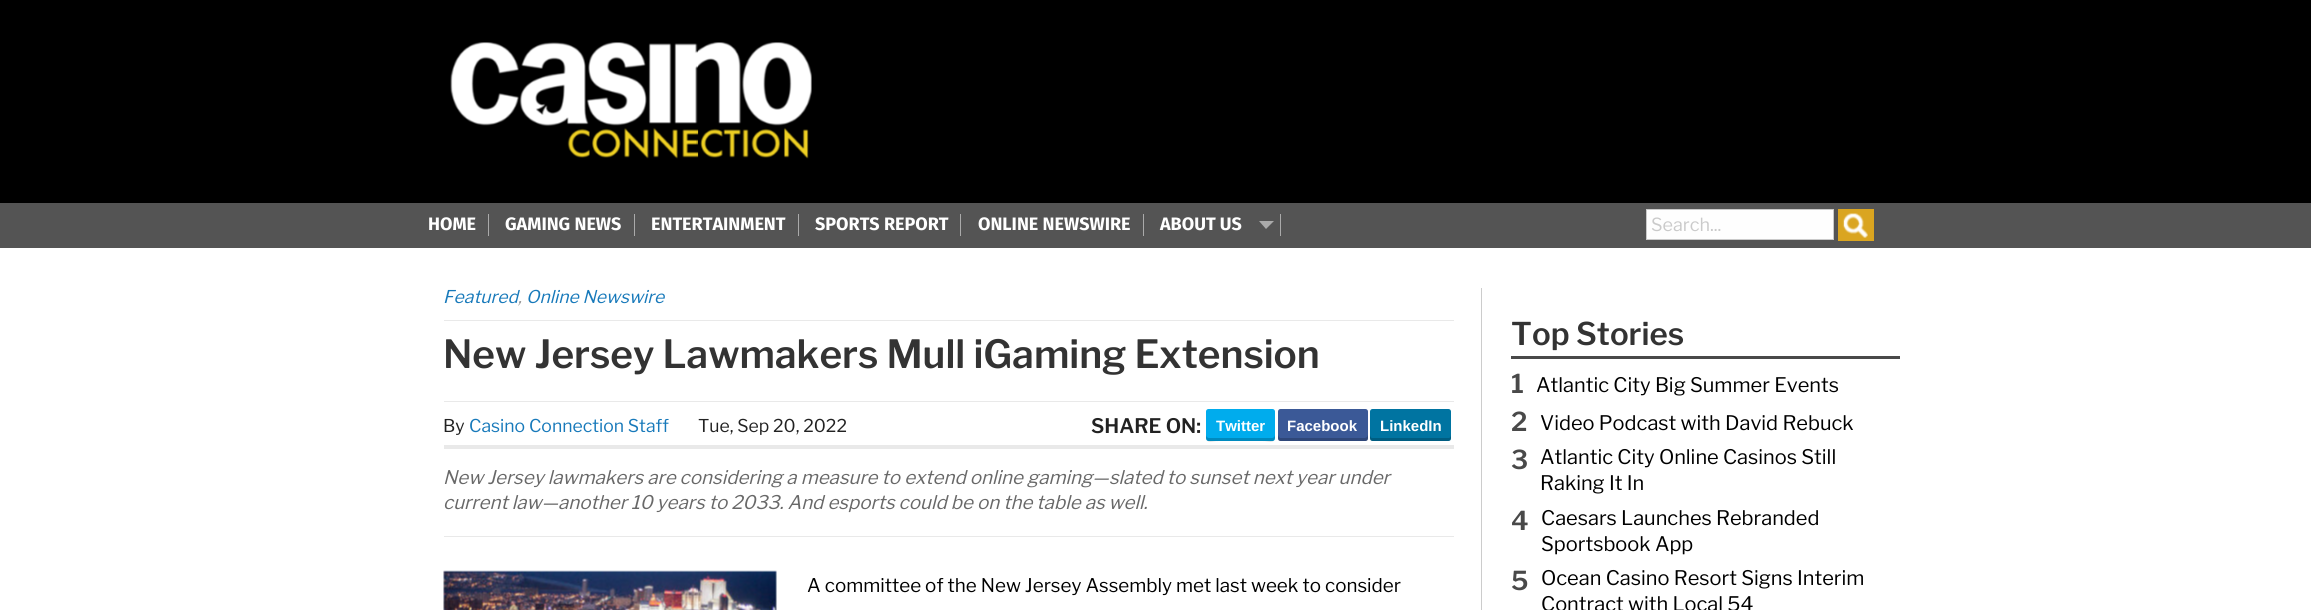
#include <cairo.h>
#include <math.h>
#include <stddef.h>


static void rgb(cairo_t *cr, int r, int g, int b)
{
	cairo_set_source_rgb(cr, r / 255.0, g / 255.0, b / 255.0);
}

static void face(cairo_t *cr, const char *family, double size, int italic, int bold)
{
	cairo_select_font_face(cr, family, italic ? CAIRO_FONT_SLANT_ITALIC : CAIRO_FONT_SLANT_NORMAL,
		bold ? CAIRO_FONT_WEIGHT_BOLD : CAIRO_FONT_WEIGHT_NORMAL);
	cairo_set_font_size(cr, size);
}

static void label(cairo_t *cr, double x, double y, const char *s)
{
	cairo_move_to(cr, x, y);
	cairo_show_text(cr, s);
}

static void rect(cairo_t *cr, double x, double y, double w, double h)
{
	cairo_rectangle(cr, x, y, w, h);
	cairo_fill(cr);
}

static void rrect(cairo_t *cr, double x, double y, double w, double h, double r)
{
	cairo_new_sub_path(cr);
	cairo_arc(cr, x + w - r, y + h - r, r, 0, M_PI / 2);
	cairo_arc(cr, x + r, y + h - r, r, M_PI / 2, M_PI);
	cairo_arc(cr, x + r, y + r, r, M_PI, 1.5 * M_PI);
	cairo_arc(cr, x + w - r, y + r, r, 1.5 * M_PI, 2 * M_PI);
	cairo_close_path(cr);
}

static void image(cairo_t *cr, const char *path, double x, double y, double w, double h)
{
	cairo_surface_t *image = cairo_image_surface_create_from_png(path);
	cairo_save(cr);
	cairo_set_source_surface(cr, image, x, y);
	cairo_rectangle(cr, x, y, w, h);
	cairo_fill(cr);
	cairo_restore(cr);
	cairo_surface_destroy(image);
}

static void draw(cairo_t *cr) {
	rgb(cr, 0, 0, 0);
	cairo_paint(cr);
	image(cr, "image0.png", 450, 42, 362, 117);
	rgb(cr, 84, 84, 84);
	rect(cr, 0, 203, 2311, 45);
	rgb(cr, 170, 170, 170);
	rect(cr, 488, 214, 1, 22);
	face(cr, "Fira Sans", 18, 0, 1);
	rgb(cr, 255, 255, 255);
	label(cr, 428, 230, "HOME");
	rgb(cr, 170, 170, 170);
	rect(cr, 634, 214, 1, 22);
	rgb(cr, 255, 255, 255);
	label(cr, 505, 230, "GAMING NEWS");
	rgb(cr, 170, 170, 170);
	rect(cr, 798, 214, 1, 22);
	rgb(cr, 255, 255, 255);
	label(cr, 651, 230, "ENTERTAINMENT");
	rgb(cr, 170, 170, 170);
	rect(cr, 960, 214, 1, 22);
	rgb(cr, 255, 255, 255);
	label(cr, 815, 230, "SPORTS REPORT");
	rgb(cr, 170, 170, 170);
	rect(cr, 1143, 214, 1, 22);
	rgb(cr, 255, 255, 255);
	label(cr, 978, 230, "ONLINE NEWSWIRE");
	rgb(cr, 170, 170, 170);
	rect(cr, 1280, 214, 1, 22);
	rgb(cr, 255, 255, 255);
	label(cr, 1160, 230, "ABOUT US");
	rgb(cr, 170, 170, 170);
	cairo_new_path(cr);
	cairo_move_to(cr, 1259, 221);
	cairo_line_to(cr, 1274, 221);
	cairo_line_to(cr, 1266, 229);
	cairo_close_path(cr);
	cairo_fill(cr);
	rgb(cr, 254, 254, 254);
	cairo_rectangle(cr, 1646.5, 209.5, 187, 30);
	cairo_fill_preserve(cr);
	rgb(cr, 202, 202, 202);
	cairo_set_line_width(cr, 1);
	cairo_stroke(cr);
	face(cr, "Libre Franklin", 18, 0, 0);
	label(cr, 1651, 231, "Search...");
	rgb(cr, 218, 165, 32);
	rect(cr, 1838, 209, 36, 32);
	image(cr, "image1.png", 1842, 213, 26, 25);
	rgb(cr, 255, 255, 255);
	rect(cr, 0, 248, 2311, 362);
	rgb(cr, 233, 233, 233);
	rect(cr, 444, 320, 1010, 1);
	face(cr, "Libre Franklin", 17.6, 1, 0);
	rgb(cr, 23, 121, 186);
	label(cr, 443, 303, "Featured");
	label(cr, 526, 303, "Online Newswire");
	rgb(cr, 153, 153, 153);
	label(cr, 518, 303, ",");
	face(cr, "Libre Franklin SemiBold", 38.75, 0, 0);
	rgb(cr, 51, 51, 51);
	label(cr, 443, 368, "New Jersey Lawmakers Mull iGaming Extension");
	rgb(cr, 233, 233, 233);
	rect(cr, 444, 401, 1010, 1);
	rect(cr, 444, 445, 1010, 4);
	face(cr, "Libre Franklin", 17.6, 0, 0);
	rgb(cr, 34, 34, 34);
	label(cr, 443, 432, "By");
	rgb(cr, 23, 121, 186);
	label(cr, 469, 432, "Casino Connection Staff");
	rgb(cr, 34, 34, 34);
	label(cr, 698, 432, "Tue, Sep 20, 2022");
	face(cr, "Libre Franklin SemiBold", 20, 0, 0);
	label(cr, 1091, 433, "SHARE ON:");
	rgb(cr, 0, 172, 237);
	rrect(cr, 1206, 409, 69, 32, 2.5);
	cairo_fill(cr);
	cairo_set_source_rgba(cr, 0, 0, 0, 0.2);
	cairo_new_path(cr);
	cairo_move_to(cr, 1206, 435);
	cairo_curve_to(cr, 1206, 444, 1209, 441, 1219, 441);
	cairo_line_to(cr, 1262, 441);
	cairo_curve_to(cr, 1272, 441, 1275, 444, 1275, 435);
	cairo_curve_to(cr, 1275, 436, 1274, 438, 1272, 438);
	cairo_line_to(cr, 1209, 438);
	cairo_curve_to(cr, 1207, 438, 1206, 436, 1206, 435);
	cairo_close_path(cr);
	cairo_fill(cr);
	face(cr, "Liberation Sans", 15, 0, 1);
	rgb(cr, 255, 255, 255);
	label(cr, 1216, 431, "Twitter");
	rgb(cr, 59, 89, 151);
	rrect(cr, 1278, 409, 90, 32, 2.5);
	cairo_fill(cr);
	cairo_set_source_rgba(cr, 0, 0, 0, 0.2);
	cairo_new_path(cr);
	cairo_move_to(cr, 1278, 435);
	cairo_line_to(cr, 1278, 438);
	cairo_curve_to(cr, 1278, 440, 1279, 441, 1280, 441);
	cairo_line_to(cr, 1366, 441);
	cairo_curve_to(cr, 1367, 441, 1368, 440, 1368, 438);
	cairo_line_to(cr, 1368, 435);
	cairo_line_to(cr, 1367, 437);
	cairo_line_to(cr, 1365, 438);
	cairo_line_to(cr, 1280, 438);
	cairo_line_to(cr, 1279, 437);
	cairo_close_path(cr);
	cairo_fill(cr);
	rgb(cr, 255, 255, 255);
	label(cr, 1287, 431, "Facebook");
	rgb(cr, 0, 116, 161);
	rrect(cr, 1370, 409, 81, 32, 2.5);
	cairo_fill(cr);
	cairo_set_source_rgba(cr, 0, 0, 0, 0.2);
	cairo_new_path(cr);
	cairo_move_to(cr, 1370, 435);
	cairo_line_to(cr, 1370, 438);
	cairo_curve_to(cr, 1370, 440, 1371, 441, 1372, 441);
	cairo_line_to(cr, 1448, 441);
	cairo_curve_to(cr, 1450, 441, 1451, 440, 1451, 438);
	cairo_line_to(cr, 1451, 435);
	cairo_curve_to(cr, 1451, 436, 1450, 438, 1449, 438);
	cairo_line_to(cr, 1372, 438);
	cairo_curve_to(cr, 1371, 438, 1370, 436, 1370, 435);
	cairo_close_path(cr);
	cairo_fill(cr);
	rgb(cr, 255, 255, 255);
	label(cr, 1380, 431, "LinkedIn");
	rgb(cr, 233, 233, 233);
	rect(cr, 444, 536, 1010, 1);
	face(cr, "Libre Franklin", 18.8, 1, 0);
	rgb(cr, 104, 104, 104);
	label(cr, 443, 484, "New Jersey lawmakers are considering a measure to extend online gaming—slated to sunset next year under");
	label(cr, 443, 509, "current law—another 10 years to 2033. And esports could be on the table as well.");
	image(cr, "image2.png", 443, 570, 334, 40);
	face(cr, "Libre Franklin", 18.8, 0, 0);
	rgb(cr, 0, 0, 0);
	label(cr, 807, 592, "A committee of the New Jersey Assembly met last week to consider");
	rgb(cr, 204, 204, 204);
	rect(cr, 1481, 288, 1, 322);
	rgb(cr, 73, 73, 73);
	rect(cr, 1511, 356, 389, 3);
	face(cr, "Libre Franklin SemiBold", 31.25, 0, 0);
	rgb(cr, 51, 51, 51);
	label(cr, 1511, 345, "Top Stories");
	face(cr, "Libre Franklin SemiBold", 26, 0, 0);
	rgb(cr, 73, 73, 73);
	label(cr, 1511, 393, "1");
	face(cr, "Libre Franklin", 20, 0, 0);
	rgb(cr, 0, 0, 0);
	label(cr, 1536, 392, "Atlantic City Big Summer Events");
	face(cr, "Libre Franklin SemiBold", 26, 0, 0);
	rgb(cr, 73, 73, 73);
	label(cr, 1511, 431, "2");
	face(cr, "Libre Franklin", 20, 0, 0);
	rgb(cr, 0, 0, 0);
	label(cr, 1540, 430, "Video Podcast with David Rebuck");
	face(cr, "Libre Franklin SemiBold", 26, 0, 0);
	rgb(cr, 73, 73, 73);
	label(cr, 1511, 469, "3");
	face(cr, "Libre Franklin", 20, 0, 0);
	rgb(cr, 0, 0, 0);
	label(cr, 1540, 464, "Atlantic City Online Casinos Still");
	label(cr, 1540, 490, "Raking It In");
	face(cr, "Libre Franklin SemiBold", 26, 0, 0);
	rgb(cr, 73, 73, 73);
	label(cr, 1511, 530, "4");
	face(cr, "Libre Franklin", 20, 0, 0);
	rgb(cr, 0, 0, 0);
	label(cr, 1541, 525, "Caesars Launches Rebranded");
	label(cr, 1541, 551, "Sportsbook App");
	face(cr, "Libre Franklin SemiBold", 26, 0, 0);
	rgb(cr, 73, 73, 73);
	label(cr, 1511, 590, "5");
	face(cr, "Libre Franklin", 20, 0, 0);
	rgb(cr, 0, 0, 0);
	label(cr, 1541, 585, "Ocean Casino Resort Signs Interim");
	label(cr, 1541, 611, "Contract with Local 54");
}

int main(void) {
	cairo_surface_t *surface = cairo_image_surface_create(CAIRO_FORMAT_RGB24, 2311, 610);
	cairo_t *cr = cairo_create(surface);
	cairo_font_options_t *options = cairo_font_options_create();
	cairo_font_options_set_hint_metrics(options, CAIRO_HINT_METRICS_OFF);
	cairo_font_options_set_hint_style(options, CAIRO_HINT_STYLE_NONE);
	cairo_set_font_options(cr, options);
	cairo_set_miter_limit(cr, 4);
	draw(cr);
	cairo_surface_write_to_png(surface, "render.png");
	cairo_font_options_destroy(options);
	cairo_destroy(cr);
	cairo_surface_destroy(surface);
	return 0;
}
